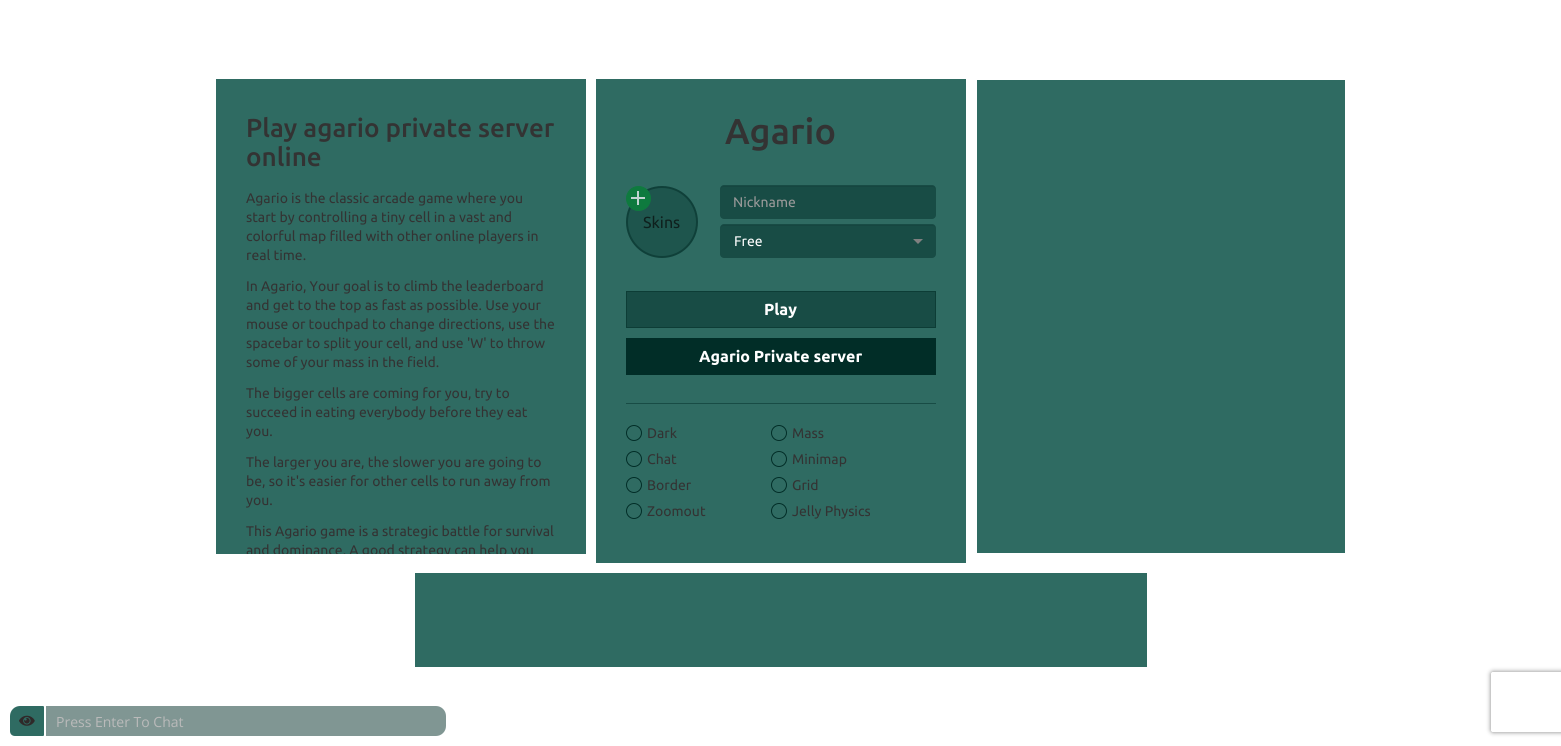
#include <cairo.h>
#include <math.h>
#include <stddef.h>


static void rgb(cairo_t *cr, int r, int g, int b)
{
	cairo_set_source_rgb(cr, r / 255.0, g / 255.0, b / 255.0);
}

static void face(cairo_t *cr, const char *family, double size, int italic, int bold)
{
	cairo_select_font_face(cr, family, italic ? CAIRO_FONT_SLANT_ITALIC : CAIRO_FONT_SLANT_NORMAL,
		bold ? CAIRO_FONT_WEIGHT_BOLD : CAIRO_FONT_WEIGHT_NORMAL);
	cairo_set_font_size(cr, size);
}

static void label(cairo_t *cr, double x, double y, const char *s)
{
	cairo_move_to(cr, x, y);
	cairo_show_text(cr, s);
}

static void rect(cairo_t *cr, double x, double y, double w, double h)
{
	cairo_rectangle(cr, x, y, w, h);
	cairo_fill(cr);
}

static void rrect(cairo_t *cr, double x, double y, double w, double h, double r)
{
	cairo_new_sub_path(cr);
	cairo_arc(cr, x + w - r, y + h - r, r, 0, M_PI / 2);
	cairo_arc(cr, x + r, y + h - r, r, M_PI / 2, M_PI);
	cairo_arc(cr, x + r, y + r, r, M_PI, 1.5 * M_PI);
	cairo_arc(cr, x + w - r, y + r, r, 1.5 * M_PI, 2 * M_PI);
	cairo_close_path(cr);
}

static void soft_shadow(cairo_t *cr, double x, double y, double w, double h, double r, double blur, double alpha)
{
	cairo_push_group_with_content(cr, CAIRO_CONTENT_ALPHA);
	cairo_set_operator(cr, CAIRO_OPERATOR_SOURCE);
	for (int i = 15; i >= -15 && fmin(w, h) + blur * i / 3 > 0; i -= 2) {
		double e = blur * i / 6;
		cairo_set_source_rgba(cr, 0, 0, 0, alpha * erfc((i - 1) / 8.5) / 2);
		rrect(cr, x - e, y - e, w + 2 * e, h + 2 * e, fmax(0, fmin(r + e + blur * .6, fmin(w, h) / 2 + e)));
		cairo_fill(cr);
	}
	cairo_pattern_t *soft = cairo_pop_group(cr);
	cairo_mask(cr, soft);
	cairo_pattern_destroy(soft);
}

static void image(cairo_t *cr, const char *path, double x, double y, double w, double h)
{
	cairo_surface_t *image = cairo_image_surface_create_from_png(path);
	cairo_save(cr);
	cairo_set_source_surface(cr, image, x, y);
	cairo_rectangle(cr, x, y, w, h);
	cairo_fill(cr);
	cairo_restore(cr);
	cairo_surface_destroy(image);
}

static void draw(cairo_t *cr) {
	rgb(cr, 255, 255, 255);
	cairo_paint(cr);
	rgb(cr, 47, 107, 98);
	rect(cr, 216, 79, 370, 475);
	face(cr, "Ubuntu Medium", 26, 0, 0);
	rgb(cr, 51, 51, 51);
	label(cr, 246, 137, "Play agario private server");
	label(cr, 246, 166, "online");
	face(cr, "Ubuntu", 14, 0, 0);
	label(cr, 246, 203, "Agario is the classic arcade game where you");
	label(cr, 246, 222, "start by controlling a tiny cell in a vast and");
	label(cr, 246, 241, "colorful map filled with other online players in");
	label(cr, 246, 260, "real time.");
	label(cr, 246, 291, "In Agario, Your goal is to climb the leaderboard");
	label(cr, 246, 310, "and get to the top as fast as possible. Use your");
	label(cr, 246, 329, "mouse or touchpad to change directions, use the");
	label(cr, 246, 348, "spacebar to split your cell, and use 'W' to throw");
	label(cr, 246, 367, "some of your mass in the field.");
	label(cr, 246, 398, "The bigger cells are coming for you, try to");
	label(cr, 246, 417, "succeed in eating everybody before they eat");
	label(cr, 246, 436, "you.");
	label(cr, 246, 467, "The larger you are, the slower you are going to");
	label(cr, 246, 486, "be, so it's easier for other cells to run away from");
	label(cr, 246, 505, "you.");
	label(cr, 246, 536, "This Agario game is a strategic battle for survival");
	cairo_save(cr);
	cairo_rectangle(cr, 216, 79, 370, 475);
	cairo_clip(cr);
	label(cr, 246, 555, "and dominance. A good strategy can help you");
	cairo_restore(cr);
	rgb(cr, 47, 107, 98);
	rect(cr, 596, 79, 370, 484);
	face(cr, "Ubuntu Medium", 36, 0, 0);
	rgb(cr, 51, 51, 51);
	label(cr, 725, 144, "Agario");
	cairo_set_source_rgba(cr, 0.059, 0.251, 0.224, 0.5);
	cairo_new_path(cr);
	cairo_arc(cr, 662, 222, 35, 0, 2 * M_PI);
	cairo_fill_preserve(cr);
	rgb(cr, 15, 64, 57);
	cairo_stroke(cr);
	rgb(cr, 14, 122, 62);
	cairo_arc(cr, 638.5, 198.5, 12, 0, 2 * M_PI);
	cairo_fill_preserve(cr);
	cairo_set_line_width(cr, 1);
	cairo_stroke(cr);
	rgb(cr, 193, 211, 208);
	rect(cr, 637, 191, 2, 14);
	rect(cr, 631, 197, 14, 2);
	face(cr, "Ubuntu", 16, 0, 0);
	rgb(cr, 14, 32, 29);
	label(cr, 643, 228, "Skins");
	rgb(cr, 24, 76, 69);
	rrect(cr, 720, 185, 216, 34, 4);
	cairo_fill(cr);
	rgb(cr, 22, 70, 64);
	cairo_new_path(cr);
	cairo_move_to(cr, 724, 187);
	cairo_line_to(cr, 932, 187);
	cairo_curve_to(cr, 934, 187, 935, 188, 935, 190);
	cairo_line_to(cr, 935, 189);
	cairo_curve_to(cr, 935, 187, 934, 186, 932, 186);
	cairo_line_to(cr, 724, 186);
	cairo_curve_to(cr, 722, 186, 721, 187, 721, 189);
	cairo_line_to(cr, 721, 190);
	cairo_curve_to(cr, 721, 188, 722, 187, 724, 187);
	cairo_close_path(cr);
	cairo_fill(cr);
	face(cr, "Ubuntu", 14, 0, 0);
	rgb(cr, 153, 153, 153);
	label(cr, 733, 207, "Nickname");
	rgb(cr, 24, 76, 69);
	rrect(cr, 720, 224, 216, 34, 4);
	cairo_fill(cr);
	rgb(cr, 128, 128, 128);
	cairo_new_path(cr);
	cairo_move_to(cr, 913, 239);
	cairo_line_to(cr, 918, 244);
	cairo_line_to(cr, 923, 239);
	cairo_close_path(cr);
	cairo_fill(cr);
	rgb(cr, 22, 70, 64);
	cairo_new_path(cr);
	cairo_move_to(cr, 724, 226);
	cairo_line_to(cr, 932, 226);
	cairo_curve_to(cr, 934, 226, 935, 227, 935, 229);
	cairo_line_to(cr, 935, 228);
	cairo_curve_to(cr, 935, 226, 934, 225, 932, 225);
	cairo_line_to(cr, 724, 225);
	cairo_curve_to(cr, 722, 225, 721, 226, 721, 228);
	cairo_line_to(cr, 721, 229);
	cairo_curve_to(cr, 721, 227, 722, 226, 724, 226);
	cairo_close_path(cr);
	cairo_fill(cr);
	rgb(cr, 255, 255, 255);
	label(cr, 734, 246, "Free");
	rgb(cr, 24, 76, 69);
	cairo_rectangle(cr, 626.5, 291.5, 309, 36);
	cairo_fill_preserve(cr);
	rgb(cr, 13, 61, 54);
	cairo_stroke(cr);
	face(cr, "Ubuntu", 16, 0, 1);
	rgb(cr, 255, 255, 255);
	label(cr, 764, 315, "Play");
	rgb(cr, 1, 45, 39);
	rect(cr, 626, 338, 310, 37);
	rgb(cr, 255, 255, 255);
	label(cr, 699, 362, "Agario Private server");
	rgb(cr, 24, 76, 69);
	rect(cr, 626, 403, 310, 1);
	cairo_new_path(cr);
	cairo_arc(cr, 634, 433, 7.5, 0, 2 * M_PI);
	rgb(cr, 1, 45, 39);
	cairo_stroke(cr);
	face(cr, "Ubuntu", 14, 0, 0);
	rgb(cr, 51, 51, 51);
	label(cr, 647, 438, "Dark");
	cairo_new_path(cr);
	cairo_arc(cr, 779, 433, 7.5, 0, 2 * M_PI);
	rgb(cr, 1, 45, 39);
	cairo_stroke(cr);
	rgb(cr, 51, 51, 51);
	label(cr, 792, 438, "Mass");
	cairo_new_path(cr);
	cairo_arc(cr, 634, 459, 7.5, 0, 2 * M_PI);
	rgb(cr, 1, 45, 39);
	cairo_stroke(cr);
	rgb(cr, 51, 51, 51);
	label(cr, 647, 464, "Chat");
	cairo_new_path(cr);
	cairo_arc(cr, 779, 459, 7.5, 0, 2 * M_PI);
	rgb(cr, 1, 45, 39);
	cairo_stroke(cr);
	rgb(cr, 51, 51, 51);
	label(cr, 792, 464, "Minimap");
	cairo_new_path(cr);
	cairo_arc(cr, 634, 485, 7.5, 0, 2 * M_PI);
	rgb(cr, 1, 45, 39);
	cairo_stroke(cr);
	rgb(cr, 51, 51, 51);
	label(cr, 647, 490, "Border");
	cairo_new_path(cr);
	cairo_arc(cr, 779, 485, 7.5, 0, 2 * M_PI);
	rgb(cr, 1, 45, 39);
	cairo_stroke(cr);
	rgb(cr, 51, 51, 51);
	label(cr, 792, 490, "Grid");
	cairo_new_path(cr);
	cairo_arc(cr, 634, 511, 7.5, 0, 2 * M_PI);
	rgb(cr, 1, 45, 39);
	cairo_stroke(cr);
	rgb(cr, 51, 51, 51);
	label(cr, 647, 516, "Zoomout");
	cairo_new_path(cr);
	cairo_arc(cr, 779, 511, 7.5, 0, 2 * M_PI);
	rgb(cr, 1, 45, 39);
	cairo_stroke(cr);
	rgb(cr, 51, 51, 51);
	label(cr, 792, 516, "Jelly Physics");
	rgb(cr, 47, 107, 98);
	rect(cr, 977, 80, 368, 473);
	rect(cr, 415, 573, 732, 94);
	cairo_new_path(cr);
	cairo_move_to(cr, 20, 706);
	cairo_line_to(cr, 43, 706);
	cairo_curve_to(cr, 43.5, 706, 44, 706.5, 44, 707);
	cairo_line_to(cr, 44, 735);
	cairo_curve_to(cr, 44, 735.5, 43.5, 736, 43, 736);
	cairo_line_to(cr, 15, 736);
	cairo_curve_to(cr, 12, 736, 10, 734, 10, 731);
	cairo_line_to(cr, 10, 716);
	cairo_curve_to(cr, 10, 710.5, 14.5, 706, 20, 706);
	cairo_close_path(cr);
	cairo_fill(cr);
	image(cr, "image0.png", 19, 715, 16, 11);
	rgb(cr, 128, 150, 147);
	cairo_new_path(cr);
	cairo_move_to(cr, 46, 706);
	cairo_line_to(cr, 436, 706);
	cairo_curve_to(cr, 441.5, 706, 446, 710.5, 446, 716);
	cairo_line_to(cr, 446, 726);
	cairo_curve_to(cr, 446, 731.5, 441.5, 736, 436, 736);
	cairo_line_to(cr, 46, 736);
	cairo_close_path(cr);
	cairo_fill(cr);
	face(cr, "Open Sans", 14, 0, 0);
	rgb(cr, 186, 186, 186);
	label(cr, 56, 727, "Press Enter To Chat");
	cairo_save(cr);
	cairo_set_fill_rule(cr, CAIRO_FILL_RULE_EVEN_ODD);
	cairo_new_path(cr);
	cairo_move_to(cr, 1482, 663);
	cairo_line_to(cr, 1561, 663);
	cairo_line_to(cr, 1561, 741);
	cairo_line_to(cr, 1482, 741);
	cairo_close_path(cr);
	cairo_move_to(cr, 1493, 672);
	cairo_line_to(cr, 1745, 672);
	cairo_curve_to(cr, 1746, 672, 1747, 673, 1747, 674);
	cairo_line_to(cr, 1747, 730);
	cairo_curve_to(cr, 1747, 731, 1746, 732, 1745, 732);
	cairo_line_to(cr, 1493, 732);
	cairo_curve_to(cr, 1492, 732, 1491, 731, 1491, 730);
	cairo_line_to(cr, 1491, 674);
	cairo_curve_to(cr, 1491, 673, 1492, 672, 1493, 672);
	cairo_close_path(cr);
	cairo_clip(cr);
	rgb(cr, 128, 128, 128);
	soft_shadow(cr, 1491, 672, 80, 60, 2, 2.5, 1);
	cairo_restore(cr);
}

int main(void) {
	cairo_surface_t *surface = cairo_image_surface_create(CAIRO_FORMAT_RGB24, 1561, 746);
	cairo_t *cr = cairo_create(surface);
	cairo_font_options_t *options = cairo_font_options_create();
	cairo_font_options_set_hint_metrics(options, CAIRO_HINT_METRICS_OFF);
	cairo_font_options_set_hint_style(options, CAIRO_HINT_STYLE_NONE);
	cairo_set_font_options(cr, options);
	cairo_set_miter_limit(cr, 4);
	draw(cr);
	cairo_surface_write_to_png(surface, "render.png");
	cairo_font_options_destroy(options);
	cairo_destroy(cr);
	cairo_surface_destroy(surface);
	return 0;
}
